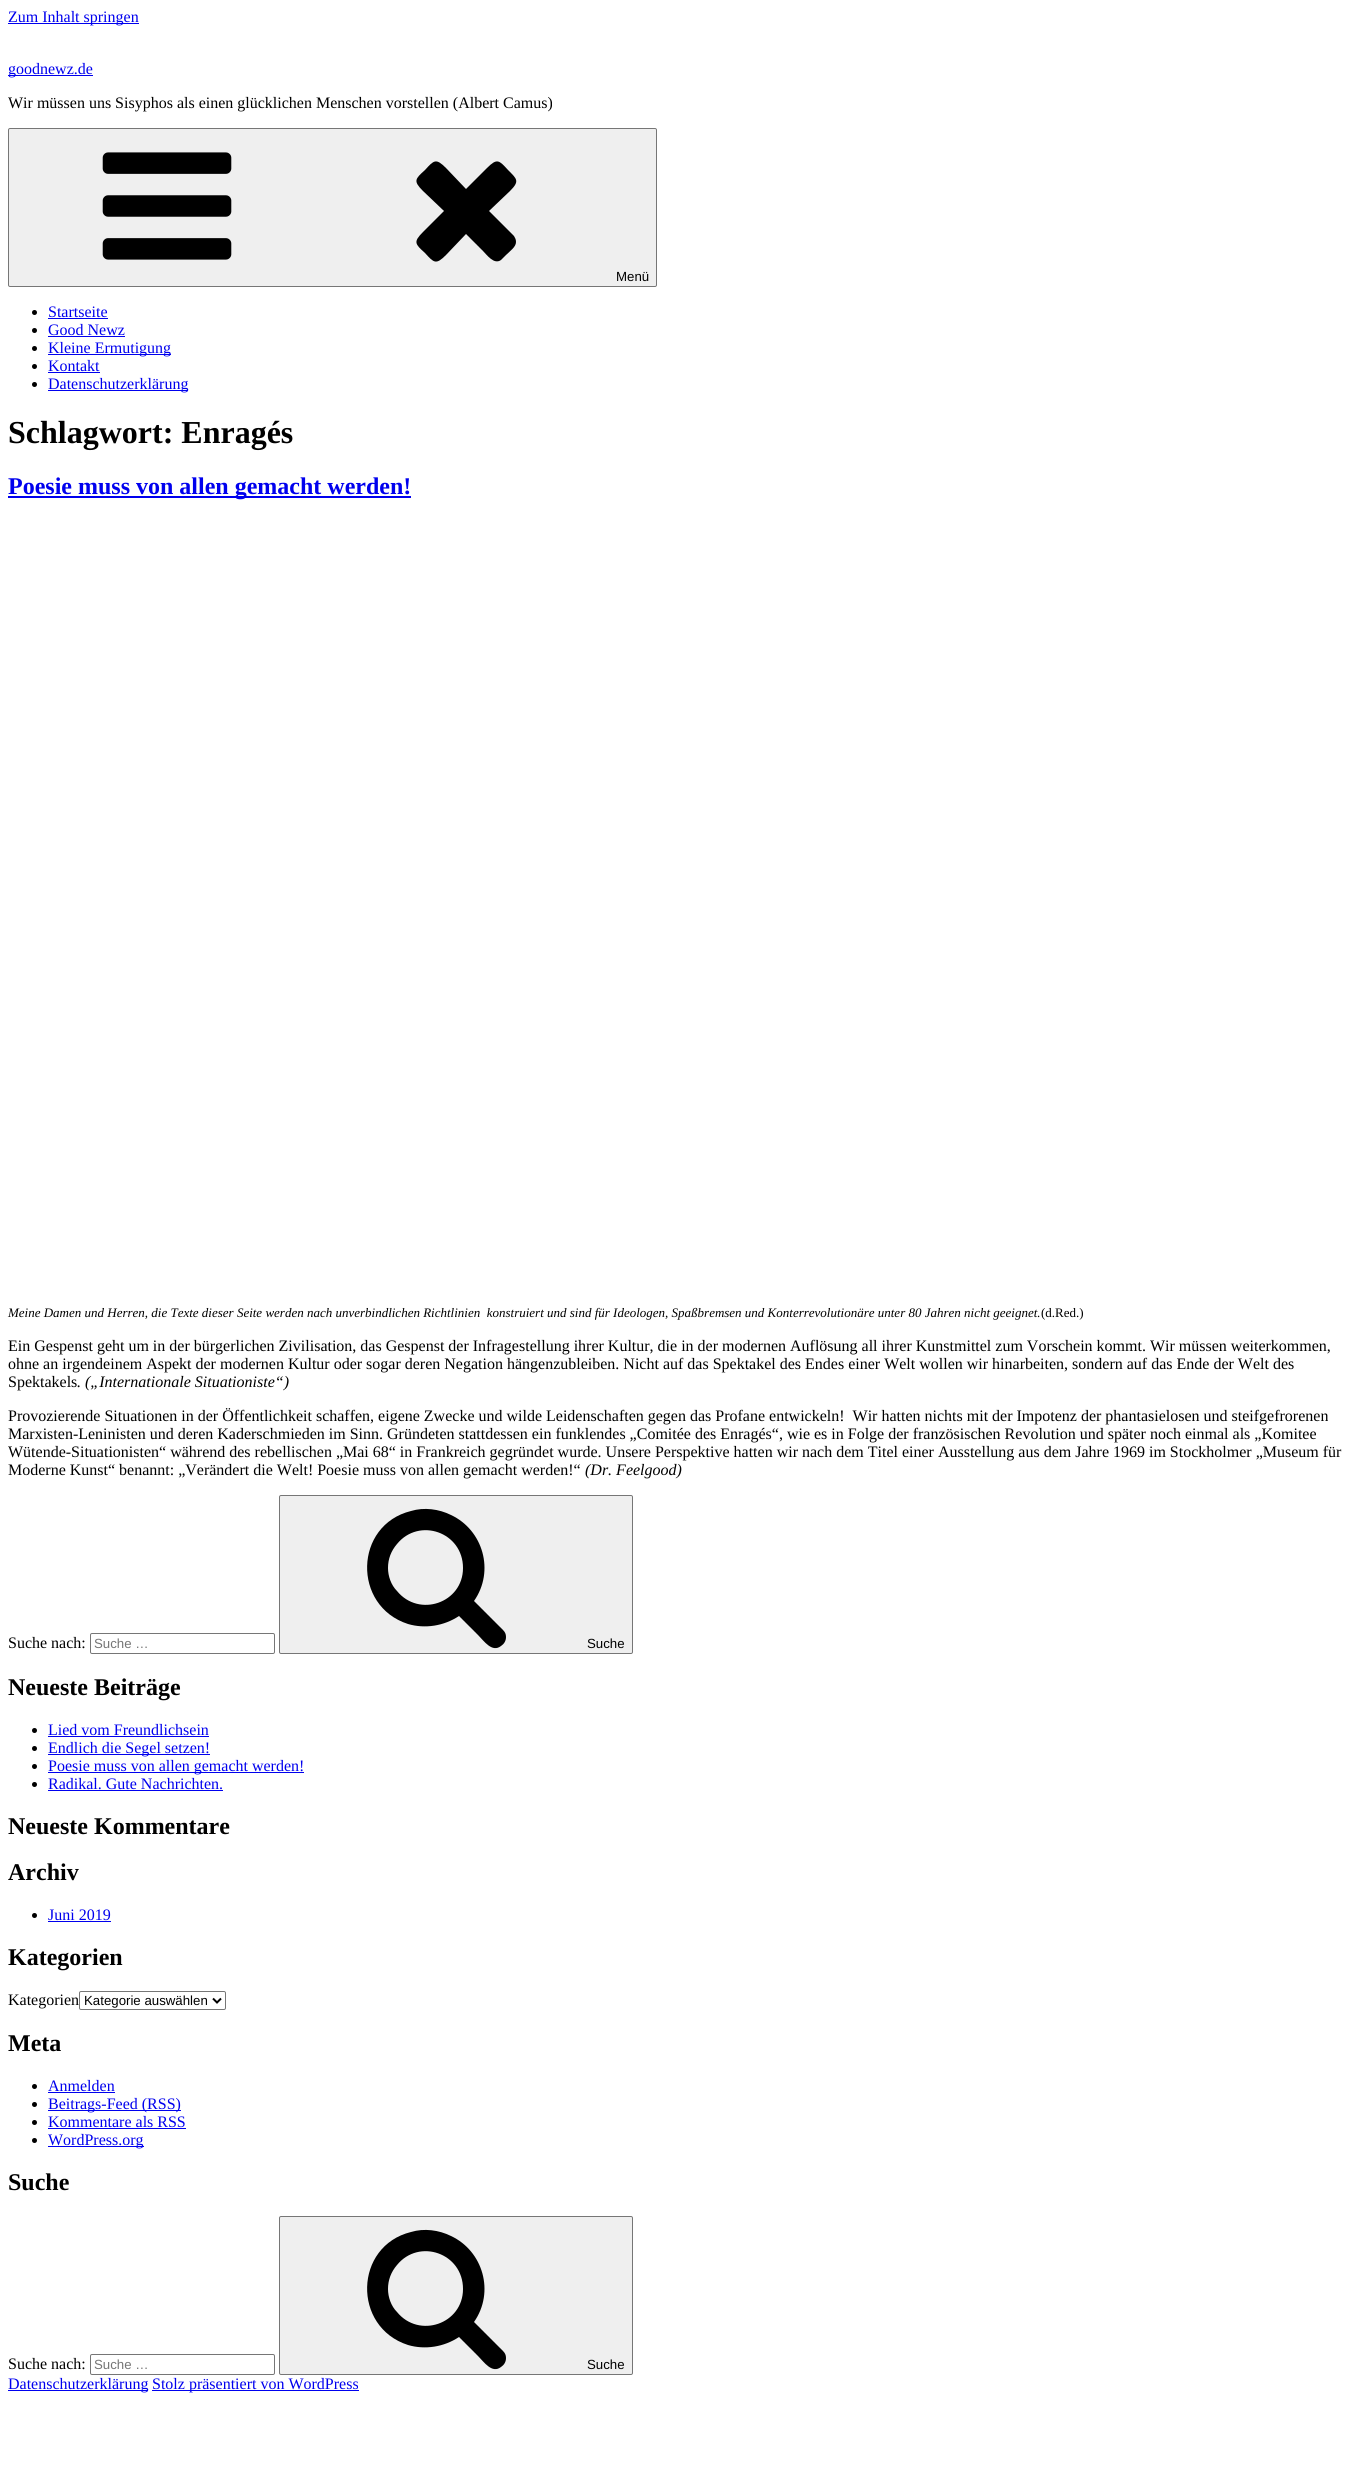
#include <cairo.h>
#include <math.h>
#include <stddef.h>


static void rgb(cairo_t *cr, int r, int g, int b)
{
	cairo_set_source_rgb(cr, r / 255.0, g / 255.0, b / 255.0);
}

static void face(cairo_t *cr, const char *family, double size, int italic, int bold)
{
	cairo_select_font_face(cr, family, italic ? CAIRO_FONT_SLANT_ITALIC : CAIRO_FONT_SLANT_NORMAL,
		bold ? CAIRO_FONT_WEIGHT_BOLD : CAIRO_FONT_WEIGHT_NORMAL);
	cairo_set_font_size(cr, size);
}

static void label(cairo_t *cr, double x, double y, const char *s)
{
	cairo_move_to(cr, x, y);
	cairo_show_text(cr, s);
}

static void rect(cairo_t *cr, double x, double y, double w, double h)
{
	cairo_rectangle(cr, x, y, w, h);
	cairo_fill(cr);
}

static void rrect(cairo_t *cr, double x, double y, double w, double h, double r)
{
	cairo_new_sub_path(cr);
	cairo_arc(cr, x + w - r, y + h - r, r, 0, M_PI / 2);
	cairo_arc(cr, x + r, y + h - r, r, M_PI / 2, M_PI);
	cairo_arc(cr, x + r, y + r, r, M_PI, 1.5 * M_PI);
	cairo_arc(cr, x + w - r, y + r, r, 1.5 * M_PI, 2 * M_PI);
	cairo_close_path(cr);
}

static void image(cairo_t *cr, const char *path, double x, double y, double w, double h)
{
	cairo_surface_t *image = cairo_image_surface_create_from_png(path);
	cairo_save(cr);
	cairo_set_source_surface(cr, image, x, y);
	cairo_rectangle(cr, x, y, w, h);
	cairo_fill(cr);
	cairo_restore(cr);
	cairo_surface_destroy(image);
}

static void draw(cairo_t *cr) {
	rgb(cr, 255, 255, 255);
	cairo_paint(cr);
	rgb(cr, 0, 0, 238);
	rect(cr, 8, 23, 131, 1);
	face(cr, "Liberation Serif", 16, 0, 0);
	label(cr, 8, 22, "Zum Inhalt springen");
	rect(cr, 8, 75, 85, 1);
	label(cr, 8, 74, "goodnewz.de");
	rgb(cr, 0, 0, 0);
	label(cr, 8, 108, "Wir müssen uns Sisyphos als einen glücklichen Menschen vorstellen (Albert Camus)");
	rgb(cr, 239, 239, 239);
	rrect(cr, 8.5, 128.5, 648, 158, 1.5);
	cairo_fill_preserve(cr);
	rgb(cr, 118, 118, 118);
	cairo_set_line_width(cr, 1);
	cairo_stroke(cr);
	image(cr, "image0.png", 102, 152, 130, 108);
	rgb(cr, 0, 0, 0);
	cairo_new_path(cr);
	cairo_move_to(cr, 516, 242);
	cairo_curve_to(cr, 516, 247, 510, 251, 506, 255);
	cairo_line_to(cr, 501, 260);
	cairo_curve_to(cr, 494, 265, 487, 255, 483, 251);
	cairo_line_to(cr, 466, 234);
	cairo_line_to(cr, 446, 255);
	cairo_curve_to(cr, 436, 265, 434, 263, 425, 253);
	cairo_curve_to(cr, 415, 244, 413, 242, 423, 232);
	cairo_line_to(cr, 444, 211);
	cairo_line_to(cr, 423, 191);
	cairo_curve_to(cr, 413, 181, 415, 179, 425, 170);
	cairo_curve_to(cr, 434, 160, 436, 158, 446, 168);
	cairo_line_to(cr, 466, 189);
	cairo_line_to(cr, 487, 168);
	cairo_curve_to(cr, 497, 158, 499, 160, 508, 170);
	cairo_curve_to(cr, 517, 179, 520, 181, 510, 191);
	cairo_line_to(cr, 489, 211);
	cairo_line_to(cr, 514, 236);
	cairo_curve_to(cr, 515, 238, 516, 239, 516, 242);
	cairo_close_path(cr);
	cairo_fill(cr);
	face(cr, "Liberation Sans", 13.25, 0, 0);
	label(cr, 616, 281, "Menü");
	cairo_new_path(cr);
	cairo_arc(cr, 34.5, 312.5, 2.5, 0, 2 * M_PI);
	cairo_fill(cr);
	face(cr, "Liberation Serif", 16, 0, 0);
	rgb(cr, 0, 0, 238);
	label(cr, 48, 317, "Startseite");
	rect(cr, 48, 318, 60, 1);
	rgb(cr, 0, 0, 0);
	cairo_new_path(cr);
	cairo_arc(cr, 34.5, 330.5, 2.5, 0, 2 * M_PI);
	cairo_fill(cr);
	rgb(cr, 0, 0, 238);
	label(cr, 48, 335, "Good Newz");
	rect(cr, 48, 336, 77, 1);
	rgb(cr, 0, 0, 0);
	cairo_new_path(cr);
	cairo_arc(cr, 34.5, 348.5, 2.5, 0, 2 * M_PI);
	cairo_fill(cr);
	rgb(cr, 0, 0, 238);
	rect(cr, 48, 354, 123, 1);
	label(cr, 48, 353, "Kleine Ermutigung");
	rgb(cr, 0, 0, 0);
	cairo_new_path(cr);
	cairo_arc(cr, 34.5, 366.5, 2.5, 0, 2 * M_PI);
	cairo_fill(cr);
	rgb(cr, 0, 0, 238);
	label(cr, 48, 371, "Kontakt");
	rect(cr, 48, 372, 52, 1);
	rgb(cr, 0, 0, 0);
	cairo_new_path(cr);
	cairo_arc(cr, 34.5, 384.5, 2.5, 0, 2 * M_PI);
	cairo_fill(cr);
	rgb(cr, 0, 0, 238);
	rect(cr, 48, 390, 140, 1);
	label(cr, 48, 389, "Datenschutzerklärung");
	face(cr, "Liberation Serif", 32, 0, 1);
	rgb(cr, 0, 0, 0);
	label(cr, 8, 443, "Schlagwort: Enragés");
	rgb(cr, 0, 0, 238);
	rect(cr, 8, 496, 403, 2);
	face(cr, "Liberation Serif", 24, 0, 1);
	label(cr, 8, 494, "Poesie muss von allen gemacht werden!");
	face(cr, "Liberation Serif", 13, 1, 0);
	rgb(cr, 0, 0, 0);
	label(cr, 8, 1317, "Meine Damen und Herren, die Texte dieser Seite werden nach unverbindlichen Richtlinien  konstruiert und sind für Ideologen, Spaßbremsen und Konterrevolutionäre unter 80 Jahren nicht geeignet.");
	face(cr, "Liberation Serif", 13, 0, 0);
	label(cr, 1041, 1317, "(d.Red.)");
	face(cr, "Liberation Serif", 16, 0, 0);
	label(cr, 8, 1351, "Ein Gespenst geht um in der bürgerlichen Zivilisation, das Gespenst der Infragestellung ihrer Kultur, die in der modernen Auflösung all ihrer Kunstmittel zum Vorschein kommt. Wir müssen weiterkommen,");
	label(cr, 8, 1369, "ohne an irgendeinem Aspekt der modernen Kultur oder sogar deren Negation hängenzubleiben. Nicht auf das Spektakel des Endes einer Welt wollen wir hinarbeiten, sondern auf das Ende der Welt des");
	label(cr, 8, 1387, "Spektakels");
	face(cr, "Liberation Serif", 16, 1, 0);
	label(cr, 77, 1387, ". („Internationale Situationiste“)");
	face(cr, "Liberation Serif", 16, 0, 0);
	label(cr, 8, 1421, "Provozierende Situationen in der Öffentlichkeit schaffen, eigene Zwecke und wilde Leidenschaften gegen das Profane entwickeln!  Wir hatten nichts mit der Impotenz der phantasielosen und steifgefrorenen");
	label(cr, 8, 1439, "Marxisten-Leninisten und deren Kaderschmieden im Sinn. Gründeten stattdessen ein funklendes „Comitée des Enragés“, wie es in Folge der französischen Revolution und später noch einmal als „Komitee");
	label(cr, 8, 1457, "Wütende-Situationisten“ während des rebellischen „Mai 68“ in Frankreich gegründet wurde. Unsere Perspektive hatten wir nach dem Titel einer Ausstellung aus dem Jahre 1969 im Stockholmer „Museum für");
	label(cr, 8, 1475, "Moderne Kunst“ benannt: „Verändert die Welt! Poesie muss von allen gemacht werden!“");
	face(cr, "Liberation Serif", 16, 1, 0);
	label(cr, 585, 1475, "(Dr. Feelgood)");
	face(cr, "Liberation Serif", 16, 0, 0);
	label(cr, 8, 1648, "Suche nach:");
	rrect(cr, 90.5, 1633.5, 184, 20, 1.5);
	rgb(cr, 118, 118, 118);
	cairo_stroke(cr);
	face(cr, "Liberation Sans", 13.25, 0, 0);
	rgb(cr, 117, 117, 117);
	label(cr, 94, 1648, "Suche …");
	rgb(cr, 239, 239, 239);
	rrect(cr, 279.5, 1495.5, 353, 158, 1.5);
	cairo_fill_preserve(cr);
	rgb(cr, 118, 118, 118);
	cairo_stroke(cr);
	rgb(cr, 0, 0, 0);
	cairo_new_path(cr);
	cairo_move_to(cr, 463, 1568);
	cairo_curve_to(cr, 463, 1532, 419, 1517, 397, 1544);
	cairo_curve_to(cr, 391, 1551, 388, 1559, 388, 1568);
	cairo_curve_to(cr, 388, 1576, 391, 1585, 397, 1591);
	cairo_curve_to(cr, 419, 1618, 463, 1603, 463, 1568);
	cairo_close_path(cr);
	cairo_move_to(cr, 506, 1637);
	cairo_curve_to(cr, 506, 1641, 504, 1644, 501, 1646);
	cairo_curve_to(cr, 492, 1653, 484, 1641, 478, 1635);
	cairo_line_to(cr, 459, 1616);
	cairo_curve_to(cr, 444, 1626, 425, 1629, 408, 1624);
	cairo_curve_to(cr, 352, 1606, 354, 1525, 411, 1511);
	cairo_curve_to(cr, 424, 1507, 439, 1509, 451, 1515);
	cairo_curve_to(cr, 483, 1530, 495, 1571, 474, 1601);
	cairo_line_to(cr, 503, 1630);
	cairo_curve_to(cr, 505, 1632, 506, 1634, 506, 1637);
	cairo_close_path(cr);
	cairo_fill(cr);
	label(cr, 587, 1648, "Suche");
	face(cr, "Liberation Serif", 24, 0, 1);
	label(cr, 8, 1695, "Neueste Beiträge");
	cairo_new_path(cr);
	cairo_arc(cr, 34.5, 1730.5, 2.5, 0, 2 * M_PI);
	cairo_fill(cr);
	face(cr, "Liberation Serif", 16, 0, 0);
	rgb(cr, 0, 0, 238);
	label(cr, 48, 1735, "Lied vom Freundlichsein");
	rect(cr, 48, 1736, 161, 1);
	rgb(cr, 0, 0, 0);
	cairo_new_path(cr);
	cairo_arc(cr, 34.5, 1748.5, 2.5, 0, 2 * M_PI);
	cairo_fill(cr);
	rgb(cr, 0, 0, 238);
	rect(cr, 48, 1754, 162, 1);
	label(cr, 48, 1753, "Endlich die Segel setzen!");
	rgb(cr, 0, 0, 0);
	cairo_new_path(cr);
	cairo_arc(cr, 34.5, 1766.5, 2.5, 0, 2 * M_PI);
	cairo_fill(cr);
	rgb(cr, 0, 0, 238);
	rect(cr, 48, 1772, 256, 1);
	label(cr, 48, 1771, "Poesie muss von allen gemacht werden!");
	rgb(cr, 0, 0, 0);
	cairo_new_path(cr);
	cairo_arc(cr, 34.5, 1784.5, 2.5, 0, 2 * M_PI);
	cairo_fill(cr);
	rgb(cr, 0, 0, 238);
	label(cr, 48, 1789, "Radikal. Gute Nachrichten.");
	rect(cr, 48, 1790, 175, 1);
	face(cr, "Liberation Serif", 24, 0, 1);
	rgb(cr, 0, 0, 0);
	label(cr, 8, 1834, "Neueste Kommentare");
	label(cr, 8, 1880, "Archiv");
	cairo_new_path(cr);
	cairo_arc(cr, 34.5, 1915.5, 2.5, 0, 2 * M_PI);
	cairo_fill(cr);
	face(cr, "Liberation Serif", 16, 0, 0);
	rgb(cr, 0, 0, 238);
	label(cr, 48, 1920, "Juni 2019");
	rect(cr, 48, 1921, 63, 1);
	face(cr, "Liberation Serif", 24, 0, 1);
	rgb(cr, 0, 0, 0);
	label(cr, 8, 1965, "Kategorien");
	face(cr, "Liberation Serif", 16, 0, 0);
	label(cr, 8, 2005, "Kategorien");
	rrect(cr, 79.5, 1991.5, 146, 18, 1.5);
	rgb(cr, 118, 118, 118);
	cairo_stroke(cr);
	cairo_new_path(cr);
	cairo_move_to(cr, 213, 1998.5);
	cairo_line_to(cr, 217, 2002.5);
	cairo_line_to(cr, 221, 1998.5);
	rgb(cr, 0, 0, 0);
	cairo_set_line_width(cr, 2);
	cairo_stroke(cr);
	face(cr, "Liberation Sans", 13.25, 0, 0);
	label(cr, 84, 2005, "Kategorie auswählen");
	face(cr, "Liberation Serif", 24, 0, 1);
	label(cr, 8, 2051, "Meta");
	cairo_new_path(cr);
	cairo_arc(cr, 34.5, 2086.5, 2.5, 0, 2 * M_PI);
	cairo_fill(cr);
	face(cr, "Liberation Serif", 16, 0, 0);
	rgb(cr, 0, 0, 238);
	label(cr, 48, 2091, "Anmelden");
	rect(cr, 48, 2092, 67, 1);
	rgb(cr, 0, 0, 0);
	cairo_new_path(cr);
	cairo_arc(cr, 34.5, 2104.5, 2.5, 0, 2 * M_PI);
	cairo_fill(cr);
	rgb(cr, 0, 0, 238);
	rect(cr, 48, 2110, 133, 1);
	label(cr, 48, 2109, "Beitrags-Feed (RSS)");
	rgb(cr, 0, 0, 0);
	cairo_new_path(cr);
	cairo_arc(cr, 34.5, 2122.5, 2.5, 0, 2 * M_PI);
	cairo_fill(cr);
	rgb(cr, 0, 0, 238);
	label(cr, 48, 2127, "Kommentare als RSS");
	rect(cr, 48, 2128, 138, 1);
	rgb(cr, 0, 0, 0);
	cairo_new_path(cr);
	cairo_arc(cr, 34.5, 2140.5, 2.5, 0, 2 * M_PI);
	cairo_fill(cr);
	rgb(cr, 0, 0, 238);
	rect(cr, 48, 2146, 96, 1);
	label(cr, 48, 2145, "WordPress.org");
	face(cr, "Liberation Serif", 24, 0, 1);
	rgb(cr, 0, 0, 0);
	label(cr, 8, 2190, "Suche");
	face(cr, "Liberation Serif", 16, 0, 0);
	label(cr, 8, 2369, "Suche nach:");
	rrect(cr, 90.5, 2354.5, 184, 20, 1.5);
	rgb(cr, 118, 118, 118);
	cairo_set_line_width(cr, 1);
	cairo_stroke(cr);
	face(cr, "Liberation Sans", 13.25, 0, 0);
	rgb(cr, 117, 117, 117);
	label(cr, 94, 2369, "Suche …");
	rgb(cr, 239, 239, 239);
	rrect(cr, 279.5, 2216.5, 353, 158, 1.5);
	cairo_fill_preserve(cr);
	rgb(cr, 118, 118, 118);
	cairo_stroke(cr);
	rgb(cr, 0, 0, 0);
	cairo_new_path(cr);
	cairo_move_to(cr, 463, 2289);
	cairo_curve_to(cr, 463, 2253, 419, 2238, 397, 2265);
	cairo_curve_to(cr, 391, 2272, 388, 2280, 388, 2289);
	cairo_curve_to(cr, 388, 2297, 391, 2306, 397, 2312);
	cairo_curve_to(cr, 419, 2339, 463, 2324, 463, 2289);
	cairo_close_path(cr);
	cairo_move_to(cr, 506, 2358);
	cairo_curve_to(cr, 506, 2362, 504, 2365, 501, 2367);
	cairo_curve_to(cr, 492, 2374, 484, 2362, 478, 2356);
	cairo_line_to(cr, 459, 2337);
	cairo_curve_to(cr, 444, 2347, 425, 2350, 408, 2345);
	cairo_curve_to(cr, 352, 2327, 354, 2246, 411, 2232);
	cairo_curve_to(cr, 424, 2228, 439, 2230, 451, 2236);
	cairo_curve_to(cr, 483, 2251, 495, 2292, 474, 2322);
	cairo_line_to(cr, 503, 2351);
	cairo_curve_to(cr, 505, 2353, 506, 2355, 506, 2358);
	cairo_close_path(cr);
	cairo_fill(cr);
	label(cr, 587, 2369, "Suche");
	rgb(cr, 0, 0, 238);
	rect(cr, 8, 2390, 140, 1);
	face(cr, "Liberation Serif", 16, 0, 0);
	label(cr, 8, 2389, "Datenschutzerklärung");
	rect(cr, 152, 2390, 207, 1);
	label(cr, 152, 2389, "Stolz präsentiert von WordPress");
}

int main(void) {
	cairo_surface_t *surface = cairo_image_surface_create(CAIRO_FORMAT_RGB24, 1368, 2489);
	cairo_t *cr = cairo_create(surface);
	cairo_font_options_t *options = cairo_font_options_create();
	cairo_font_options_set_hint_metrics(options, CAIRO_HINT_METRICS_OFF);
	cairo_font_options_set_hint_style(options, CAIRO_HINT_STYLE_NONE);
	cairo_set_font_options(cr, options);
	cairo_set_miter_limit(cr, 4);
	draw(cr);
	cairo_surface_write_to_png(surface, "render.png");
	cairo_font_options_destroy(options);
	cairo_destroy(cr);
	cairo_surface_destroy(surface);
	return 0;
}
